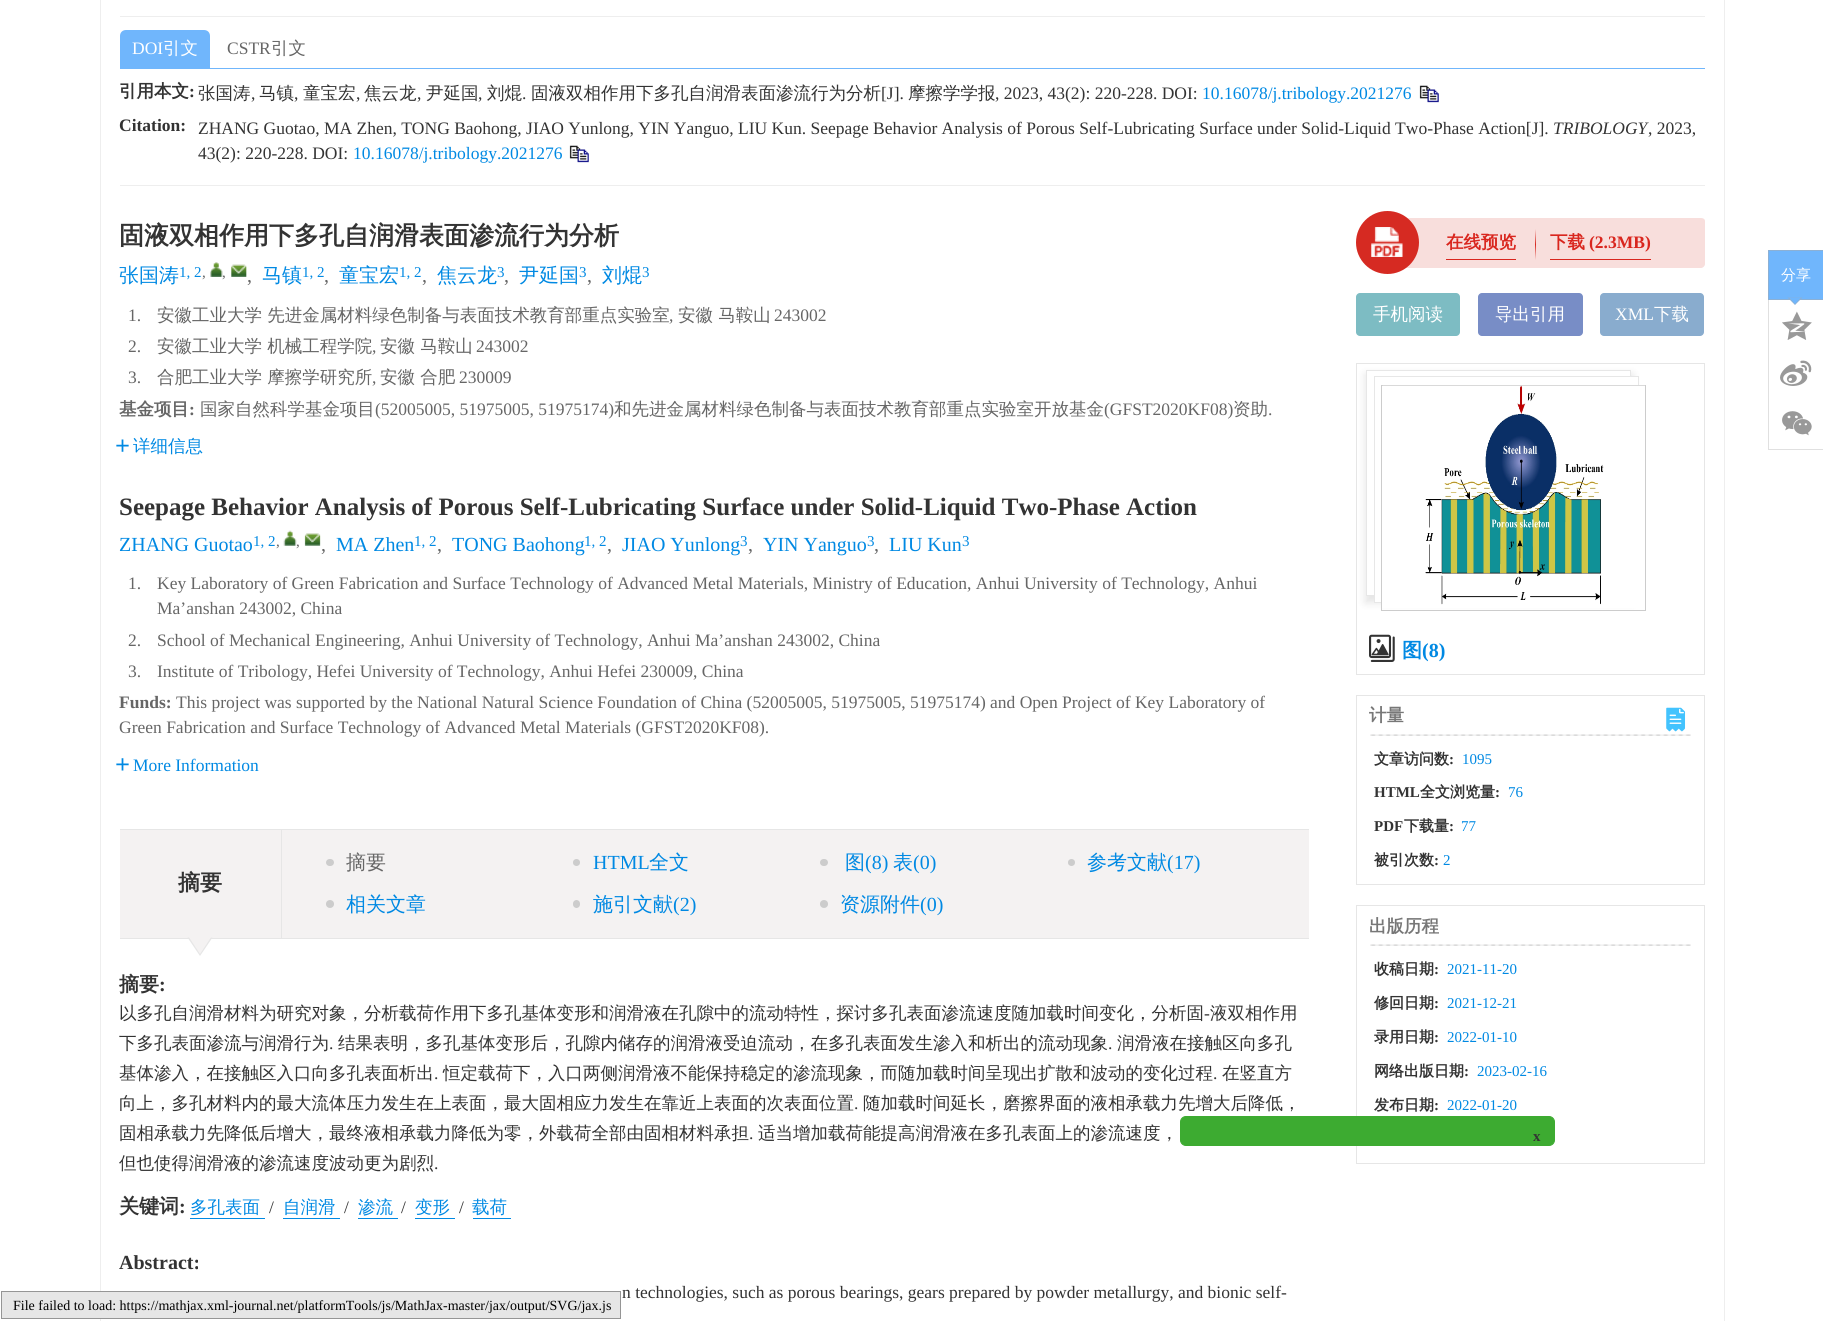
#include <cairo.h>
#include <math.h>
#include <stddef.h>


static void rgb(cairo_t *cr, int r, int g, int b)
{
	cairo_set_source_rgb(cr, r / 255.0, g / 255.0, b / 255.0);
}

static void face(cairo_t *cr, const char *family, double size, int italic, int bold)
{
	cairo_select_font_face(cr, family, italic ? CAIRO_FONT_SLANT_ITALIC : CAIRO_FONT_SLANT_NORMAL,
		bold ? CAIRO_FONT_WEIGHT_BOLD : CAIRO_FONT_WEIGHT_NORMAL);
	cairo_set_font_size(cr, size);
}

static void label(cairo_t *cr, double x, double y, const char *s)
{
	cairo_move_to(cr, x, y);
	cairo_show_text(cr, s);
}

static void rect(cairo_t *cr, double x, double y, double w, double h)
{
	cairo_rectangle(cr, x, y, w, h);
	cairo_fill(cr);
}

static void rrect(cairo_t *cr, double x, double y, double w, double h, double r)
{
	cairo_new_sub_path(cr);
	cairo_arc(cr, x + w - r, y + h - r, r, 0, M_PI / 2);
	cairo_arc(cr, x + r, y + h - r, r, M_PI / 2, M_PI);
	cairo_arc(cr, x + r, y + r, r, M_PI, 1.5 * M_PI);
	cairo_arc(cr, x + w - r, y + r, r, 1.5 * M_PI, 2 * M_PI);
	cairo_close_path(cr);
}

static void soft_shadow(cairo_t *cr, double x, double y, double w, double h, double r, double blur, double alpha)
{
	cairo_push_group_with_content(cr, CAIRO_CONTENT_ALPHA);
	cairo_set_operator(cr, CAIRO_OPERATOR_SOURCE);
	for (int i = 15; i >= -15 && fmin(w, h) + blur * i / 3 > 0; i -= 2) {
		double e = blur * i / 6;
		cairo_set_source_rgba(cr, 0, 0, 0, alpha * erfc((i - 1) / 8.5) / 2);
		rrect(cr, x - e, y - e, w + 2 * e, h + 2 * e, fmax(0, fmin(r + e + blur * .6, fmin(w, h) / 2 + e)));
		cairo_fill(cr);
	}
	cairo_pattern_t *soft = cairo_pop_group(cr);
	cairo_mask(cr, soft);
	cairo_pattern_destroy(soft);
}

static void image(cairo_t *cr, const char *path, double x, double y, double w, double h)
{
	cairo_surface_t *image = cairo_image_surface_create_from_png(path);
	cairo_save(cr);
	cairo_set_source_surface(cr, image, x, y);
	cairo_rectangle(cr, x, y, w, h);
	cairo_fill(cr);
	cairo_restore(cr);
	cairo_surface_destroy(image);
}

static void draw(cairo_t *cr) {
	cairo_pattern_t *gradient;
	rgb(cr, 255, 255, 255);
	cairo_paint(cr);
	cairo_rectangle(cr, 100.5, -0.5, 1624, 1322);
	rgb(cr, 238, 238, 238);
	cairo_set_line_width(cr, 1);
	cairo_stroke(cr);
	rect(cr, 120, 16, 1585, 1);
	rgb(cr, 112, 182, 252);
	rect(cr, 120, 68, 1585, 1);
	cairo_new_path(cr);
	cairo_move_to(cr, 126, 30);
	cairo_line_to(cr, 204, 30);
	cairo_curve_to(cr, 207.5, 30, 210, 32.5, 210, 36);
	cairo_line_to(cr, 210, 68);
	cairo_line_to(cr, 120, 68);
	cairo_line_to(cr, 120, 36);
	cairo_curve_to(cr, 120, 32.5, 122.5, 30, 126, 30);
	cairo_close_path(cr);
	cairo_fill(cr);
	face(cr, "Liberation Serif", 17.5, 0, 0);
	rgb(cr, 255, 255, 255);
	label(cr, 132, 54, "DOI");
	face(cr, "WenQuanYi Zen Hei Medium", 17.5, 0, 0);
	label(cr, 163, 54, "引文");
	face(cr, "Liberation Serif", 17.5, 0, 0);
	rgb(cr, 102, 102, 102);
	label(cr, 227, 54, "CSTR");
	face(cr, "WenQuanYi Zen Hei Medium", 17.5, 0, 0);
	label(cr, 271, 54, "引文");
	rgb(cr, 238, 238, 238);
	rect(cr, 120, 185, 1585, 1);
	face(cr, "WenQuanYi Zen Hei", 17.5, 0, 1);
	rgb(cr, 51, 51, 51);
	label(cr, 119, 97, "引用本文");
	face(cr, "Liberation Serif", 17.5, 0, 1);
	label(cr, 189, 97, ":");
	face(cr, "WenQuanYi Zen Hei Medium", 17.5, 0, 0);
	label(cr, 198, 99, "张国涛");
	face(cr, "Liberation Serif", 17.5, 0, 0);
	label(cr, 251, 99, ",");
	face(cr, "WenQuanYi Zen Hei Medium", 17.5, 0, 0);
	label(cr, 259, 99, "马镇");
	face(cr, "Liberation Serif", 17.5, 0, 0);
	label(cr, 294, 99, ",");
	face(cr, "WenQuanYi Zen Hei Medium", 17.5, 0, 0);
	label(cr, 303, 99, "童宝宏");
	face(cr, "Liberation Serif", 17.5, 0, 0);
	label(cr, 356, 99, ",");
	face(cr, "WenQuanYi Zen Hei Medium", 17.5, 0, 0);
	label(cr, 364, 99, "焦云龙");
	face(cr, "Liberation Serif", 17.5, 0, 0);
	label(cr, 417, 99, ",");
	face(cr, "WenQuanYi Zen Hei Medium", 17.5, 0, 0);
	label(cr, 426, 99, "尹延国");
	face(cr, "Liberation Serif", 17.5, 0, 0);
	label(cr, 478, 99, ",");
	face(cr, "WenQuanYi Zen Hei Medium", 17.5, 0, 0);
	label(cr, 487, 99, "刘焜");
	face(cr, "Liberation Serif", 17.5, 0, 0);
	label(cr, 522, 99, ".");
	face(cr, "WenQuanYi Zen Hei Medium", 17.5, 0, 0);
	label(cr, 531, 99, "固液双相作用下多孔自润滑表面渗流行为分析");
	face(cr, "Liberation Serif", 17.5, 0, 0);
	label(cr, 881, 99, "[J].");
	face(cr, "WenQuanYi Zen Hei Medium", 17.5, 0, 0);
	label(cr, 908, 99, "摩擦学学报");
	face(cr, "Liberation Serif", 17.5, 0, 0);
	label(cr, 995, 99, ", 2023, 43(2): 220-228. DOI:");
	rgb(cr, 0, 137, 227);
	label(cr, 1202, 99, "10.16078/j.tribology.2021276");
	image(cr, "image0.png", 1419, 85, 20, 18);
	face(cr, "Liberation Serif", 17.5, 0, 1);
	rgb(cr, 51, 51, 51);
	label(cr, 119, 131, "Citation:");
	face(cr, "Liberation Serif", 17.5, 0, 0);
	label(cr, 198, 134, "ZHANG Guotao, MA Zhen, TONG Baohong, JIAO Yunlong, YIN Yanguo, LIU Kun. Seepage Behavior Analysis of Porous Self-Lubricating Surface under Solid-Liquid Two-Phase Action[J].");
	face(cr, "Liberation Serif", 17.5, 1, 0);
	label(cr, 1553, 134, "TRIBOLOGY");
	face(cr, "Liberation Serif", 17.5, 0, 0);
	label(cr, 1648, 134, ", 2023,");
	label(cr, 198, 159, "43(2): 220-228. DOI:");
	rgb(cr, 0, 137, 227);
	label(cr, 353, 159, "10.16078/j.tribology.2021276");
	image(cr, "image1.png", 569, 145, 20, 18);
	face(cr, "WenQuanYi Zen Hei", 25, 0, 1);
	rgb(cr, 51, 51, 51);
	label(cr, 119, 244, "固液双相作用下多孔自润滑表面渗流行为分析");
	face(cr, "WenQuanYi Zen Hei Medium", 20, 0, 0);
	rgb(cr, 0, 137, 227);
	label(cr, 119, 282, "张国涛");
	face(cr, "Liberation Serif", 15, 0, 0);
	label(cr, 179, 277, "1, 2");
	rgb(cr, 102, 102, 102);
	label(cr, 202, 277, ",");
	image(cr, "image2.png", 210, 262, 13, 15);
	label(cr, 222, 277, ",");
	image(cr, "image3.png", 231, 264, 16, 13);
	face(cr, "Liberation Serif", 20, 0, 0);
	label(cr, 247, 282, ",");
	face(cr, "WenQuanYi Zen Hei Medium", 20, 0, 0);
	rgb(cr, 0, 137, 227);
	label(cr, 262, 282, "马镇");
	face(cr, "Liberation Serif", 15, 0, 0);
	label(cr, 302, 277, "1, 2");
	face(cr, "Liberation Serif", 20, 0, 0);
	rgb(cr, 102, 102, 102);
	label(cr, 324, 282, ",");
	face(cr, "WenQuanYi Zen Hei Medium", 20, 0, 0);
	rgb(cr, 0, 137, 227);
	label(cr, 339, 282, "童宝宏");
	face(cr, "Liberation Serif", 15, 0, 0);
	label(cr, 399, 277, "1, 2");
	face(cr, "Liberation Serif", 20, 0, 0);
	rgb(cr, 102, 102, 102);
	label(cr, 422, 282, ",");
	face(cr, "WenQuanYi Zen Hei Medium", 20, 0, 0);
	rgb(cr, 0, 137, 227);
	label(cr, 437, 282, "焦云龙");
	face(cr, "Liberation Serif", 15, 0, 0);
	label(cr, 497, 277, "3");
	face(cr, "Liberation Serif", 20, 0, 0);
	rgb(cr, 102, 102, 102);
	label(cr, 504, 282, ",");
	face(cr, "WenQuanYi Zen Hei Medium", 20, 0, 0);
	rgb(cr, 0, 137, 227);
	label(cr, 519, 282, "尹延国");
	face(cr, "Liberation Serif", 15, 0, 0);
	label(cr, 579, 277, "3");
	face(cr, "Liberation Serif", 20, 0, 0);
	rgb(cr, 102, 102, 102);
	label(cr, 587, 282, ",");
	face(cr, "WenQuanYi Zen Hei Medium", 20, 0, 0);
	rgb(cr, 0, 137, 227);
	label(cr, 602, 282, "刘焜");
	face(cr, "Liberation Serif", 15, 0, 0);
	label(cr, 642, 277, "3");
	face(cr, "Liberation Serif", 17.5, 0, 0);
	rgb(cr, 102, 102, 102);
	label(cr, 128, 321, "1.");
	face(cr, "WenQuanYi Zen Hei Medium", 17.5, 0, 0);
	label(cr, 157, 321, "安徽工业大学 先进金属材料绿色制备与表面技术教育部重点实验室");
	face(cr, "Liberation Serif", 17.5, 0, 0);
	label(cr, 669, 321, ",");
	face(cr, "WenQuanYi Zen Hei Medium", 17.5, 0, 0);
	label(cr, 678, 321, "安徽 马鞍山");
	face(cr, "Liberation Serif", 17.5, 0, 0);
	label(cr, 774, 321, "243002");
	label(cr, 128, 352, "2.");
	face(cr, "WenQuanYi Zen Hei Medium", 17.5, 0, 0);
	label(cr, 157, 352, "安徽工业大学 机械工程学院");
	face(cr, "Liberation Serif", 17.5, 0, 0);
	label(cr, 372, 352, ",");
	face(cr, "WenQuanYi Zen Hei Medium", 17.5, 0, 0);
	label(cr, 380, 352, "安徽 马鞍山");
	face(cr, "Liberation Serif", 17.5, 0, 0);
	label(cr, 476, 352, "243002");
	label(cr, 128, 383, "3.");
	face(cr, "WenQuanYi Zen Hei Medium", 17.5, 0, 0);
	label(cr, 157, 383, "合肥工业大学 摩擦学研究所");
	face(cr, "Liberation Serif", 17.5, 0, 0);
	label(cr, 372, 383, ",");
	face(cr, "WenQuanYi Zen Hei Medium", 17.5, 0, 0);
	label(cr, 380, 383, "安徽 合肥");
	face(cr, "Liberation Serif", 17.5, 0, 0);
	label(cr, 459, 383, "230009");
	face(cr, "WenQuanYi Zen Hei", 17.5, 0, 1);
	label(cr, 119, 415, "基金项目");
	face(cr, "Liberation Serif", 17.5, 0, 1);
	label(cr, 189, 415, ":");
	face(cr, "WenQuanYi Zen Hei Medium", 17.5, 0, 0);
	label(cr, 200, 415, "国家自然科学基金项目");
	face(cr, "Liberation Serif", 17.5, 0, 0);
	label(cr, 375, 415, "(52005005, 51975005, 51975174)");
	face(cr, "WenQuanYi Zen Hei Medium", 17.5, 0, 0);
	label(cr, 614, 415, "和先进金属材料绿色制备与表面技术教育部重点实验室开放基金");
	face(cr, "Liberation Serif", 17.5, 0, 0);
	label(cr, 1104, 415, "(GFST2020KF08)");
	face(cr, "WenQuanYi Zen Hei Medium", 17.5, 0, 0);
	label(cr, 1233, 415, "资助");
	face(cr, "Liberation Serif", 17.5, 0, 0);
	label(cr, 1268, 415, ".");
	image(cr, "image4.png", 116, 439, 13, 13);
	face(cr, "WenQuanYi Zen Hei Medium", 17.5, 0, 0);
	rgb(cr, 0, 137, 227);
	label(cr, 133, 452, "详细信息");
	face(cr, "Liberation Serif", 25, 0, 1);
	rgb(cr, 51, 51, 51);
	label(cr, 119, 515, "Seepage Behavior Analysis of Porous Self-Lubricating Surface under Solid-Liquid Two-Phase Action");
	face(cr, "Liberation Serif", 20, 0, 0);
	rgb(cr, 0, 137, 227);
	label(cr, 119, 551, "ZHANG Guotao");
	face(cr, "Liberation Serif", 15, 0, 0);
	label(cr, 253, 546, "1, 2");
	rgb(cr, 102, 102, 102);
	label(cr, 276, 546, ",");
	image(cr, "image5.png", 283, 530, 14, 16);
	label(cr, 296, 546, ",");
	image(cr, "image6.png", 304, 533, 17, 13);
	face(cr, "Liberation Serif", 20, 0, 0);
	label(cr, 321, 551, ",");
	rgb(cr, 0, 137, 227);
	label(cr, 336, 551, "MA Zhen");
	face(cr, "Liberation Serif", 15, 0, 0);
	label(cr, 414, 546, "1, 2");
	face(cr, "Liberation Serif", 20, 0, 0);
	rgb(cr, 102, 102, 102);
	label(cr, 437, 551, ",");
	rgb(cr, 0, 137, 227);
	label(cr, 452, 551, "TONG Baohong");
	face(cr, "Liberation Serif", 15, 0, 0);
	label(cr, 584, 546, "1, 2");
	face(cr, "Liberation Serif", 20, 0, 0);
	rgb(cr, 102, 102, 102);
	label(cr, 607, 551, ",");
	rgb(cr, 0, 137, 227);
	label(cr, 622, 551, "JIAO Yunlong");
	face(cr, "Liberation Serif", 15, 0, 0);
	label(cr, 740, 546, "3");
	face(cr, "Liberation Serif", 20, 0, 0);
	rgb(cr, 102, 102, 102);
	label(cr, 748, 551, ",");
	rgb(cr, 0, 137, 227);
	label(cr, 763, 551, "YIN Yanguo");
	face(cr, "Liberation Serif", 15, 0, 0);
	label(cr, 867, 546, "3");
	face(cr, "Liberation Serif", 20, 0, 0);
	rgb(cr, 102, 102, 102);
	label(cr, 874, 551, ",");
	rgb(cr, 0, 137, 227);
	label(cr, 889, 551, "LIU Kun");
	face(cr, "Liberation Serif", 15, 0, 0);
	label(cr, 962, 546, "3");
	face(cr, "Liberation Serif", 17.5, 0, 0);
	rgb(cr, 102, 102, 102);
	label(cr, 128, 589, "1.");
	label(cr, 157, 589, "Key Laboratory of Green Fabrication and Surface Technology of Advanced Metal Materials, Ministry of Education, Anhui University of Technology, Anhui");
	label(cr, 157, 614, "Ma’anshan 243002, China");
	label(cr, 128, 646, "2.");
	label(cr, 157, 646, "School of Mechanical Engineering, Anhui University of Technology, Anhui Ma’anshan 243002, China");
	label(cr, 128, 677, "3.");
	label(cr, 157, 677, "Institute of Tribology, Hefei University of Technology, Anhui Hefei 230009, China");
	face(cr, "Liberation Serif", 17.5, 0, 1);
	label(cr, 119, 708, "Funds:");
	face(cr, "Liberation Serif", 17.5, 0, 0);
	label(cr, 176, 708, "This project was supported by the National Natural Science Foundation of China (52005005, 51975005, 51975174) and Open Project of Key Laboratory of");
	label(cr, 119, 733, "Green Fabrication and Surface Technology of Advanced Metal Materials (GFST2020KF08).");
	image(cr, "image7.png", 116, 758, 13, 13);
	rgb(cr, 0, 137, 227);
	label(cr, 133, 771, "More Information");
	rgb(cr, 244, 242, 242);
	rect(cr, 120, 830, 1189, 108);
	rgb(cr, 230, 230, 230);
	rect(cr, 120, 829, 1189, 1);
	rect(cr, 120, 938, 1189, 1);
	rect(cr, 281, 830, 1, 108);
	face(cr, "WenQuanYi Zen Hei", 22, 0, 1);
	rgb(cr, 51, 51, 51);
	label(cr, 178, 890, "摘要");
	rgb(cr, 230, 230, 230);
	cairo_new_path(cr);
	cairo_move_to(cr, 187.5, 937.5);
	cairo_line_to(cr, 212.5, 937.5);
	cairo_line_to(cr, 200, 956);
	cairo_close_path(cr);
	cairo_fill(cr);
	rgb(cr, 244, 242, 242);
	cairo_new_path(cr);
	cairo_move_to(cr, 187.5, 935);
	cairo_line_to(cr, 212.5, 935);
	cairo_line_to(cr, 200, 954);
	cairo_close_path(cr);
	cairo_fill(cr);
	rgb(cr, 204, 204, 204);
	rrect(cr, 326, 859, 8, 7, 3.5);
	cairo_fill(cr);
	face(cr, "WenQuanYi Zen Hei Medium", 20, 0, 0);
	rgb(cr, 102, 102, 102);
	label(cr, 346, 869, "摘要");
	rgb(cr, 204, 204, 204);
	cairo_new_path(cr);
	cairo_arc(cr, 576.5, 862.5, 3.5, 0, 2 * M_PI);
	cairo_fill(cr);
	face(cr, "Liberation Serif", 20, 0, 0);
	rgb(cr, 0, 137, 227);
	label(cr, 593, 869, "HTML");
	face(cr, "WenQuanYi Zen Hei Medium", 20, 0, 0);
	label(cr, 649, 869, "全文");
	rgb(cr, 204, 204, 204);
	rrect(cr, 820, 859, 8, 7, 3.5);
	cairo_fill(cr);
	rgb(cr, 0, 137, 227);
	label(cr, 845, 869, "图");
	face(cr, "Liberation Serif", 20, 0, 0);
	label(cr, 865, 869, "(8)");
	face(cr, "WenQuanYi Zen Hei Medium", 20, 0, 0);
	label(cr, 893, 869, "表");
	face(cr, "Liberation Serif", 20, 0, 0);
	label(cr, 913, 869, "(0)");
	rgb(cr, 204, 204, 204);
	cairo_new_path(cr);
	cairo_arc(cr, 1071.5, 862.5, 3.5, 0, 2 * M_PI);
	cairo_fill(cr);
	face(cr, "WenQuanYi Zen Hei Medium", 20, 0, 0);
	rgb(cr, 0, 137, 227);
	label(cr, 1087, 869, "参考文献");
	face(cr, "Liberation Serif", 20, 0, 0);
	label(cr, 1167, 869, "(17)");
	rgb(cr, 204, 204, 204);
	cairo_new_path(cr);
	cairo_arc(cr, 330, 904, 4, 0, 2 * M_PI);
	cairo_fill(cr);
	face(cr, "WenQuanYi Zen Hei Medium", 20, 0, 0);
	rgb(cr, 0, 137, 227);
	label(cr, 346, 911, "相关文章");
	rgb(cr, 204, 204, 204);
	rrect(cr, 573, 900, 7, 8, 3.5);
	cairo_fill(cr);
	rgb(cr, 0, 137, 227);
	label(cr, 593, 911, "施引文献");
	face(cr, "Liberation Serif", 20, 0, 0);
	label(cr, 673, 911, "(2)");
	rgb(cr, 204, 204, 204);
	cairo_new_path(cr);
	cairo_arc(cr, 824, 904, 4, 0, 2 * M_PI);
	cairo_fill(cr);
	face(cr, "WenQuanYi Zen Hei Medium", 20, 0, 0);
	rgb(cr, 0, 137, 227);
	label(cr, 840, 911, "资源附件");
	face(cr, "Liberation Serif", 20, 0, 0);
	label(cr, 920, 911, "(0)");
	face(cr, "WenQuanYi Zen Hei", 20, 0, 1);
	rgb(cr, 51, 51, 51);
	label(cr, 119, 991, "摘要");
	face(cr, "Liberation Serif", 20, 0, 1);
	label(cr, 159, 991, ":");
	face(cr, "WenQuanYi Zen Hei Medium", 17.5, 0, 0);
	label(cr, 119, 1019, "以多孔自润滑材料为研究对象，分析载荷作用下多孔基体变形和润滑液在孔隙中的流动特性，探讨多孔表面渗流速度随加载时间变化，分析固");
	face(cr, "Liberation Serif", 17.5, 0, 0);
	label(cr, 1204, 1019, "-");
	face(cr, "WenQuanYi Zen Hei Medium", 17.5, 0, 0);
	label(cr, 1210, 1019, "液双相作用");
	label(cr, 119, 1049, "下多孔表面渗流与润滑行为");
	face(cr, "Liberation Serif", 17.5, 0, 0);
	label(cr, 329, 1049, ".");
	face(cr, "WenQuanYi Zen Hei Medium", 17.5, 0, 0);
	label(cr, 338, 1049, "结果表明，多孔基体变形后，孔隙内储存的润滑液受迫流动，在多孔表面发生渗入和析出的流动现象");
	face(cr, "Liberation Serif", 17.5, 0, 0);
	label(cr, 1108, 1049, ".");
	face(cr, "WenQuanYi Zen Hei Medium", 17.5, 0, 0);
	label(cr, 1117, 1049, "润滑液在接触区向多孔");
	label(cr, 119, 1079, "基体渗入，在接触区入口向多孔表面析出");
	face(cr, "Liberation Serif", 17.5, 0, 0);
	label(cr, 434, 1079, ".");
	face(cr, "WenQuanYi Zen Hei Medium", 17.5, 0, 0);
	label(cr, 443, 1079, "恒定载荷下，入口两侧润滑液不能保持稳定的渗流现象，而随加载时间呈现出扩散和波动的变化过程");
	face(cr, "Liberation Serif", 17.5, 0, 0);
	label(cr, 1213, 1079, ".");
	face(cr, "WenQuanYi Zen Hei Medium", 17.5, 0, 0);
	label(cr, 1222, 1079, "在竖直方");
	label(cr, 119, 1109, "向上，多孔材料内的最大流体压力发生在上表面，最大固相应力发生在靠近上表面的次表面位置");
	face(cr, "Liberation Serif", 17.5, 0, 0);
	label(cr, 854, 1109, ".");
	face(cr, "WenQuanYi Zen Hei Medium", 17.5, 0, 0);
	label(cr, 863, 1109, "随加载时间延长，磨擦界面的液相承载力先增大后降低，");
	label(cr, 119, 1139, "固相承载力先降低后增大，最终液相承载力降低为零，外载荷全部由固相材料承担");
	face(cr, "Liberation Serif", 17.5, 0, 0);
	label(cr, 749, 1139, ".");
	face(cr, "WenQuanYi Zen Hei Medium", 17.5, 0, 0);
	label(cr, 758, 1139, "适当增加载荷能提高润滑液在多孔表面上的渗流速度，");
	label(cr, 119, 1169, "但也使得润滑液的渗流速度波动更为剧烈");
	face(cr, "Liberation Serif", 17.5, 0, 0);
	label(cr, 434, 1169, ".");
	face(cr, "WenQuanYi Zen Hei", 20, 0, 1);
	label(cr, 119, 1213, "关键词");
	face(cr, "Liberation Serif", 20, 0, 1);
	label(cr, 179, 1213, ":");
	face(cr, "WenQuanYi Zen Hei Medium", 17.5, 0, 0);
	rgb(cr, 0, 137, 227);
	label(cr, 190, 1213, "多孔表面");
	rect(cr, 190, 1218, 75, 1);
	face(cr, "Liberation Serif", 17.5, 0, 0);
	rgb(cr, 51, 51, 51);
	label(cr, 269, 1213, "/");
	face(cr, "WenQuanYi Zen Hei Medium", 17.5, 0, 0);
	rgb(cr, 0, 137, 227);
	label(cr, 283, 1213, "自润滑");
	rect(cr, 283, 1218, 57, 1);
	face(cr, "Liberation Serif", 17.5, 0, 0);
	rgb(cr, 51, 51, 51);
	label(cr, 344, 1213, "/");
	face(cr, "WenQuanYi Zen Hei Medium", 17.5, 0, 0);
	rgb(cr, 0, 137, 227);
	label(cr, 358, 1213, "渗流");
	rect(cr, 358, 1218, 40, 1);
	face(cr, "Liberation Serif", 17.5, 0, 0);
	rgb(cr, 51, 51, 51);
	label(cr, 401, 1213, "/");
	face(cr, "WenQuanYi Zen Hei Medium", 17.5, 0, 0);
	rgb(cr, 0, 137, 227);
	label(cr, 415, 1213, "变形");
	rect(cr, 415, 1218, 40, 1);
	face(cr, "Liberation Serif", 17.5, 0, 0);
	rgb(cr, 51, 51, 51);
	label(cr, 459, 1213, "/");
	face(cr, "WenQuanYi Zen Hei Medium", 17.5, 0, 0);
	rgb(cr, 0, 137, 227);
	label(cr, 472, 1213, "载荷");
	rect(cr, 473, 1218, 38, 1);
	face(cr, "Liberation Serif", 20, 0, 1);
	rgb(cr, 51, 51, 51);
	label(cr, 119, 1269, "Abstract:");
	face(cr, "Liberation Serif", 17.5, 0, 0);
	label(cr, 622, 1298, "n technologies, such as porous bearings, gears prepared by powder metallurgy, and bionic self-");
	rgb(cr, 248, 222, 220);
	cairo_new_path(cr);
	cairo_move_to(cr, 1388, 218);
	cairo_line_to(cr, 1701, 218);
	cairo_curve_to(cr, 1703, 218, 1705, 219, 1705, 221);
	cairo_line_to(cr, 1705, 264);
	cairo_curve_to(cr, 1705, 266, 1703, 268, 1701, 268);
	cairo_line_to(cr, 1388, 268);
	cairo_close_path(cr);
	cairo_fill(cr);
	rgb(cr, 214, 42, 34);
	cairo_arc(cr, 1387.5, 242.5, 31.5, 0, 2 * M_PI);
	cairo_fill(cr);
	image(cr, "image8.png", 1371, 227, 32, 30);
	rgb(cr, 217, 38, 30);
	rect(cr, 1446, 259, 70, 1);
	face(cr, "WenQuanYi Zen Hei", 17.5, 0, 1);
	label(cr, 1446, 248, "在线预览");
	gradient = cairo_pattern_create_linear(1536, 229, 1536, 260);
	cairo_pattern_add_color_stop_rgba(gradient, 0, 0.973, 0.871, 0.863, 1);
	cairo_pattern_add_color_stop_rgba(gradient, 0.5, 0.839, 0.165, 0.133, 1);
	cairo_pattern_add_color_stop_rgba(gradient, 1, 0.973, 0.871, 0.863, 1);
	cairo_set_source(cr, gradient);
	cairo_pattern_destroy(gradient);
	rect(cr, 1535, 229, 1, 31);
	rgb(cr, 217, 38, 30);
	rect(cr, 1550, 259, 101, 1);
	label(cr, 1550, 248, "下载");
	face(cr, "Liberation Serif", 17.5, 0, 1);
	label(cr, 1589, 248, "(2.3MB)");
	rgb(cr, 125, 188, 195);
	rrect(cr, 1356, 293, 104, 43, 4);
	cairo_fill(cr);
	face(cr, "WenQuanYi Zen Hei Medium", 17.5, 0, 0);
	rgb(cr, 255, 255, 255);
	label(cr, 1373, 320, "手机阅读");
	rgb(cr, 120, 141, 198);
	rrect(cr, 1478, 293, 105, 43, 4);
	cairo_fill(cr);
	rgb(cr, 255, 255, 255);
	label(cr, 1495, 320, "导出引用");
	rgb(cr, 137, 172, 206);
	rrect(cr, 1600, 293, 104, 43, 4);
	cairo_fill(cr);
	face(cr, "Liberation Serif", 17.5, 0, 0);
	rgb(cr, 255, 255, 255);
	label(cr, 1615, 320, "XML");
	face(cr, "WenQuanYi Zen Hei Medium", 17.5, 0, 0);
	label(cr, 1654, 320, "下载");
	cairo_rectangle(cr, 1356.5, 363.5, 348, 311);
	rgb(cr, 230, 230, 230);
	cairo_stroke(cr);
	rgb(cr, 0, 0, 0);
	soft_shadow(cr, 1365, 374, 268, 229, 0, 4, 0.1);
	rgb(cr, 255, 255, 255);
	cairo_rectangle(cr, 1366.5, 370.5, 264, 225);
	cairo_fill_preserve(cr);
	rgb(cr, 231, 231, 231);
	cairo_stroke(cr);
	rgb(cr, 255, 255, 255);
	cairo_rectangle(cr, 1374.5, 376.5, 264, 226);
	cairo_fill_preserve(cr);
	rgb(cr, 231, 231, 231);
	cairo_stroke(cr);
	rgb(cr, 255, 255, 255);
	rect(cr, 1382, 386, 257, 222);
	cairo_rectangle(cr, 1381.5, 385.5, 264, 225);
	rgb(cr, 204, 204, 204);
	cairo_stroke(cr);
	image(cr, "image9.png", 1382, 385, 263, 220);
	image(cr, "image10.png", 1369, 634, 26, 28);
	face(cr, "WenQuanYi Zen Hei", 20, 0, 1);
	rgb(cr, 0, 137, 227);
	label(cr, 1402, 657, "图");
	face(cr, "Liberation Serif", 20, 0, 1);
	label(cr, 1422, 657, "(8)");
	cairo_rectangle(cr, 1356.5, 695.5, 348, 189);
	rgb(cr, 230, 230, 230);
	cairo_stroke(cr);
	face(cr, "WenQuanYi Zen Hei", 17.5, 0, 1);
	rgb(cr, 119, 119, 119);
	label(cr, 1369, 721, "计量");
	image(cr, "image11.png", 1666, 707, 20, 25);
	image(cr, "image12.png", 1370, 734, 321, 2);
	face(cr, "WenQuanYi Zen Hei", 15, 0, 1);
	rgb(cr, 51, 51, 51);
	label(cr, 1374, 764, "文章访问数");
	face(cr, "Liberation Serif", 15, 0, 1);
	label(cr, 1449, 764, ":");
	face(cr, "Liberation Serif", 15, 0, 0);
	rgb(cr, 0, 137, 227);
	label(cr, 1462, 764, "1095");
	face(cr, "Liberation Serif", 15, 0, 1);
	rgb(cr, 51, 51, 51);
	label(cr, 1374, 797, "HTML");
	face(cr, "WenQuanYi Zen Hei", 15, 0, 1);
	label(cr, 1420, 797, "全文浏览量");
	face(cr, "Liberation Serif", 15, 0, 1);
	label(cr, 1495, 797, ":");
	face(cr, "Liberation Serif", 15, 0, 0);
	rgb(cr, 0, 137, 227);
	label(cr, 1508, 797, "76");
	face(cr, "Liberation Serif", 15, 0, 1);
	rgb(cr, 51, 51, 51);
	label(cr, 1374, 831, "PDF");
	face(cr, "WenQuanYi Zen Hei", 15, 0, 1);
	label(cr, 1404, 831, "下载量");
	face(cr, "Liberation Serif", 15, 0, 1);
	label(cr, 1449, 831, ":");
	face(cr, "Liberation Serif", 15, 0, 0);
	rgb(cr, 0, 137, 227);
	label(cr, 1461, 831, "77");
	face(cr, "WenQuanYi Zen Hei", 15, 0, 1);
	rgb(cr, 51, 51, 51);
	label(cr, 1374, 865, "被引次数");
	face(cr, "Liberation Serif", 15, 0, 1);
	label(cr, 1434, 865, ":");
	face(cr, "Liberation Serif", 15, 0, 0);
	rgb(cr, 0, 137, 227);
	label(cr, 1443, 865, "2");
	cairo_rectangle(cr, 1356.5, 905.5, 348, 258);
	rgb(cr, 230, 230, 230);
	cairo_stroke(cr);
	face(cr, "WenQuanYi Zen Hei", 17.5, 0, 1);
	rgb(cr, 119, 119, 119);
	label(cr, 1369, 932, "出版历程");
	image(cr, "image12.png", 1370, 944, 321, 2);
	face(cr, "WenQuanYi Zen Hei", 15, 0, 1);
	rgb(cr, 51, 51, 51);
	label(cr, 1374, 974, "收稿日期");
	face(cr, "Liberation Serif", 15, 0, 1);
	label(cr, 1434, 974, ":");
	face(cr, "Liberation Serif", 15, 0, 0);
	rgb(cr, 0, 137, 227);
	label(cr, 1447, 974, "2021-11-20");
	face(cr, "WenQuanYi Zen Hei", 15, 0, 1);
	rgb(cr, 51, 51, 51);
	label(cr, 1374, 1008, "修回日期");
	face(cr, "Liberation Serif", 15, 0, 1);
	label(cr, 1434, 1008, ":");
	face(cr, "Liberation Serif", 15, 0, 0);
	rgb(cr, 0, 137, 227);
	label(cr, 1447, 1008, "2021-12-21");
	face(cr, "WenQuanYi Zen Hei", 15, 0, 1);
	rgb(cr, 51, 51, 51);
	label(cr, 1374, 1042, "录用日期");
	face(cr, "Liberation Serif", 15, 0, 1);
	label(cr, 1434, 1042, ":");
	face(cr, "Liberation Serif", 15, 0, 0);
	rgb(cr, 0, 137, 227);
	label(cr, 1447, 1042, "2022-01-10");
	face(cr, "WenQuanYi Zen Hei", 15, 0, 1);
	rgb(cr, 51, 51, 51);
	label(cr, 1374, 1076, "网络出版日期");
	face(cr, "Liberation Serif", 15, 0, 1);
	label(cr, 1464, 1076, ":");
	face(cr, "Liberation Serif", 15, 0, 0);
	rgb(cr, 0, 137, 227);
	label(cr, 1477, 1076, "2023-02-16");
	face(cr, "WenQuanYi Zen Hei", 15, 0, 1);
	rgb(cr, 51, 51, 51);
	label(cr, 1374, 1110, "发布日期");
	face(cr, "Liberation Serif", 15, 0, 1);
	label(cr, 1434, 1110, ":");
	face(cr, "Liberation Serif", 15, 0, 0);
	rgb(cr, 0, 137, 227);
	label(cr, 1447, 1110, "2022-01-20");
	rgb(cr, 224, 224, 224);
	rect(cr, 1768, 449, 55, 1);
	rgb(cr, 112, 182, 252);
	cairo_rectangle(cr, 1768.5, 250.5, 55, 49);
	cairo_fill_preserve(cr);
	rgb(cr, 140, 176, 212);
	cairo_stroke(cr);
	face(cr, "WenQuanYi Zen Hei Medium", 15, 0, 0);
	rgb(cr, 255, 255, 255);
	label(cr, 1781, 280, "分享");
	rgb(cr, 140, 176, 212);
	cairo_new_path(cr);
	cairo_move_to(cr, 1787.5, 297.5);
	cairo_line_to(cr, 1802.5, 297.5);
	cairo_line_to(cr, 1795, 305);
	cairo_close_path(cr);
	cairo_fill(cr);
	rgb(cr, 112, 182, 252);
	cairo_new_path(cr);
	cairo_move_to(cr, 1789, 297.5);
	cairo_line_to(cr, 1801, 297.5);
	cairo_line_to(cr, 1795, 304);
	cairo_close_path(cr);
	cairo_fill(cr);
	rgb(cr, 224, 224, 224);
	rect(cr, 1768, 300, 1, 150);
	image(cr, "image13.png", 1782, 311, 30, 29);
	image(cr, "image14.png", 1780, 360, 32, 26);
	image(cr, "image15.png", 1782, 411, 30, 25);
	rgb(cr, 61, 171, 49);
	rrect(cr, 1180.5, 1116.5, 374, 29, 5.5);
	cairo_fill_preserve(cr);
	cairo_stroke(cr);
	face(cr, "Liberation Serif", 15, 0, 1);
	rgb(cr, 51, 51, 51);
	label(cr, 1533, 1141, "x");
	rgb(cr, 230, 230, 230);
	cairo_rectangle(cr, 1.5, 1291.5, 619, 27);
	cairo_fill_preserve(cr);
	rgb(cr, 149, 149, 149);
	cairo_stroke(cr);
	face(cr, "Liberation Serif", 14, 0, 0);
	rgb(cr, 0, 0, 0);
	label(cr, 13, 1310, "File failed to load: https://mathjax.xml-journal.net/platformTools/js/MathJax-master/jax/output/SVG/jax.js");
}

int main(void) {
	cairo_surface_t *surface = cairo_image_surface_create(CAIRO_FORMAT_RGB24, 1823, 1321);
	cairo_t *cr = cairo_create(surface);
	cairo_font_options_t *options = cairo_font_options_create();
	cairo_font_options_set_hint_metrics(options, CAIRO_HINT_METRICS_OFF);
	cairo_font_options_set_hint_style(options, CAIRO_HINT_STYLE_NONE);
	cairo_set_font_options(cr, options);
	cairo_set_miter_limit(cr, 4);
	draw(cr);
	cairo_surface_write_to_png(surface, "render.png");
	cairo_font_options_destroy(options);
	cairo_destroy(cr);
	cairo_surface_destroy(surface);
	return 0;
}
